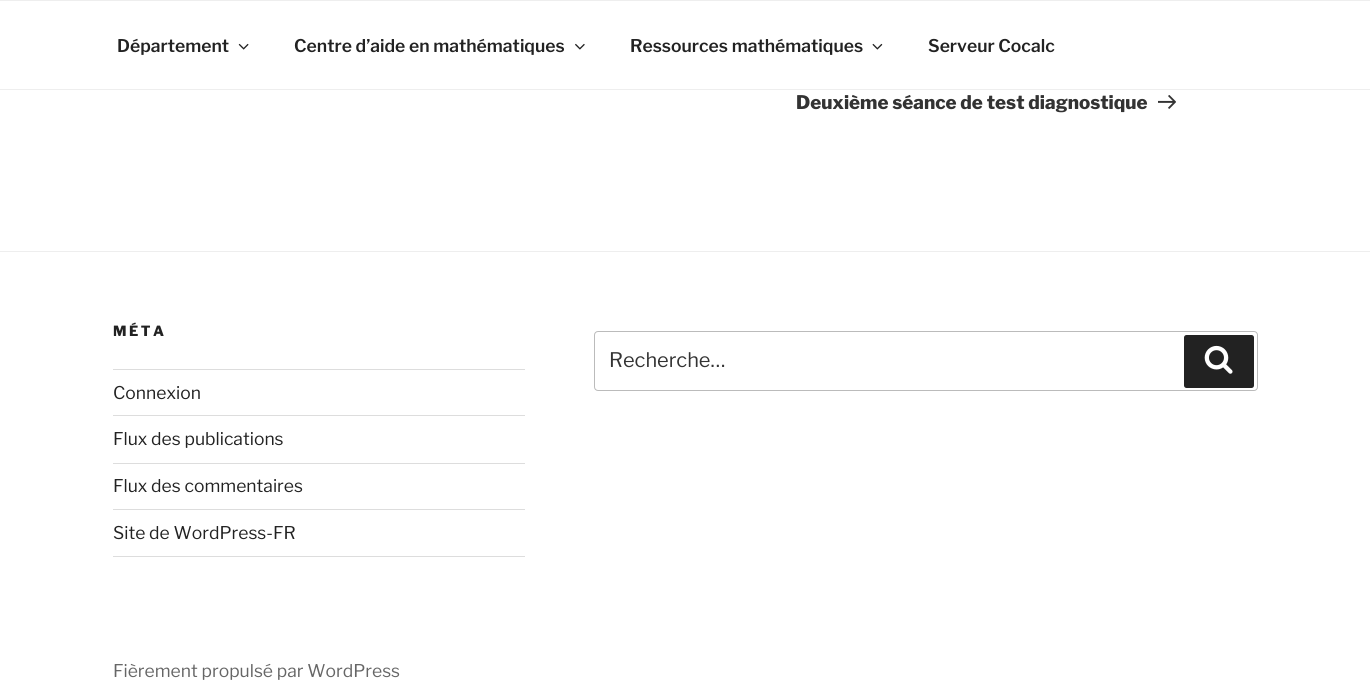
#include <cairo.h>
#include <math.h>
#include <stddef.h>


static void rgb(cairo_t *cr, int r, int g, int b)
{
	cairo_set_source_rgb(cr, r / 255.0, g / 255.0, b / 255.0);
}

static void face(cairo_t *cr, const char *family, double size, int italic, int bold)
{
	cairo_select_font_face(cr, family, italic ? CAIRO_FONT_SLANT_ITALIC : CAIRO_FONT_SLANT_NORMAL,
		bold ? CAIRO_FONT_WEIGHT_BOLD : CAIRO_FONT_WEIGHT_NORMAL);
	cairo_set_font_size(cr, size);
}

static void label(cairo_t *cr, double x, double y, const char *s)
{
	cairo_move_to(cr, x, y);
	cairo_show_text(cr, s);
}

static void tracked(cairo_t *cr, double x, double y, const char *s, double letter, double word)
{
	cairo_move_to(cr, x, y);
	while (*s) {
		char ch[5] = {0};
		int n = 0;
		do ch[n++] = *s++; while ((*s & 0xC0) == 0x80);
		cairo_show_text(cr, ch);
		cairo_rel_move_to(cr, letter + word * (*ch == ' '), 0);
	}
}

static void rect(cairo_t *cr, double x, double y, double w, double h)
{
	cairo_rectangle(cr, x, y, w, h);
	cairo_fill(cr);
}

static void rrect(cairo_t *cr, double x, double y, double w, double h, double r)
{
	cairo_new_sub_path(cr);
	cairo_arc(cr, x + w - r, y + h - r, r, 0, M_PI / 2);
	cairo_arc(cr, x + r, y + h - r, r, M_PI / 2, M_PI);
	cairo_arc(cr, x + r, y + r, r, M_PI, 1.5 * M_PI);
	cairo_arc(cr, x + w - r, y + r, r, 1.5 * M_PI, 2 * M_PI);
	cairo_close_path(cr);
}

static void image(cairo_t *cr, const char *path, double x, double y, double w, double h)
{
	cairo_surface_t *image = cairo_image_surface_create_from_png(path);
	cairo_save(cr);
	cairo_set_source_surface(cr, image, x, y);
	cairo_rectangle(cr, x, y, w, h);
	cairo_fill(cr);
	cairo_restore(cr);
	cairo_surface_destroy(image);
}

static void draw(cairo_t *cr) {
	rgb(cr, 255, 255, 255);
	cairo_paint(cr);
	rgb(cr, 238, 238, 238);
	rect(cr, 0, 0, 1370, 1);
	rect(cr, 0, 89, 1370, 1);
	face(cr, "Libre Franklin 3 Thin", 17.5, 0, 0);
	rgb(cr, 34, 34, 34);
	label(cr, 117, 52, "Département");
	image(cr, "image0.png", 238, 43, 11, 7);
	label(cr, 294, 52, "Centre d’aide en mathématiques");
	image(cr, "image1.png", 575, 43, 10, 7);
	label(cr, 630, 52, "Ressources mathématiques");
	image(cr, "image2.png", 872, 43, 11, 7);
	label(cr, 928, 52, "Serveur Cocalc");
	face(cr, "Libre Franklin Thin", 18.75, 0, 0);
	rgb(cr, 51, 51, 51);
	label(cr, 796, 109, "Deuxième séance de test diagnostique");
	image(cr, "image3.png", 1158, 95, 18, 14);
	rgb(cr, 238, 238, 238);
	rect(cr, 0, 251, 1370, 1);
	face(cr, "Libre Franklin Thin", 14, 0, 0);
	rgb(cr, 34, 34, 34);
	tracked(cr, 113, 336, "MÉTA", 2.5, 0);
	rgb(cr, 221, 221, 221);
	rect(cr, 113, 369, 412, 1);
	rect(cr, 113, 415, 412, 1);
	face(cr, "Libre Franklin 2 Thin", 17.5, 0, 0);
	rgb(cr, 34, 34, 34);
	label(cr, 113, 399, "Connexion");
	rgb(cr, 221, 221, 221);
	rect(cr, 113, 463, 412, 1);
	rgb(cr, 34, 34, 34);
	label(cr, 113, 445, "Flux des publications");
	rgb(cr, 221, 221, 221);
	rect(cr, 113, 509, 412, 1);
	rgb(cr, 34, 34, 34);
	label(cr, 113, 492, "Flux des commentaires");
	rgb(cr, 221, 221, 221);
	rect(cr, 113, 556, 412, 1);
	rgb(cr, 34, 34, 34);
	label(cr, 113, 539, "Site de WordPress-FR");
	rrect(cr, 594.5, 331.5, 663, 59, 3.5);
	rgb(cr, 187, 187, 187);
	cairo_set_line_width(cr, 1);
	cairo_stroke(cr);
	face(cr, "Libre Franklin 2 Thin", 20, 0, 0);
	rgb(cr, 51, 51, 51);
	label(cr, 609, 367, "Recherche…");
	rgb(cr, 34, 34, 34);
	rrect(cr, 1184, 335, 70, 53, 2.5);
	cairo_fill(cr);
	image(cr, "image4.png", 1204, 345, 29, 29);
	face(cr, "Libre Franklin 2 Thin", 17.5, 0, 0);
	rgb(cr, 102, 102, 102);
	label(cr, 113, 677, "Fièrement propulsé par WordPress");
}

int main(void) {
	cairo_surface_t *surface = cairo_image_surface_create(CAIRO_FORMAT_RGB24, 1370, 685);
	cairo_t *cr = cairo_create(surface);
	cairo_font_options_t *options = cairo_font_options_create();
	cairo_font_options_set_hint_metrics(options, CAIRO_HINT_METRICS_OFF);
	cairo_font_options_set_hint_style(options, CAIRO_HINT_STYLE_NONE);
	cairo_set_font_options(cr, options);
	cairo_set_miter_limit(cr, 4);
	draw(cr);
	cairo_surface_write_to_png(surface, "render.png");
	cairo_font_options_destroy(options);
	cairo_destroy(cr);
	cairo_surface_destroy(surface);
	return 0;
}
